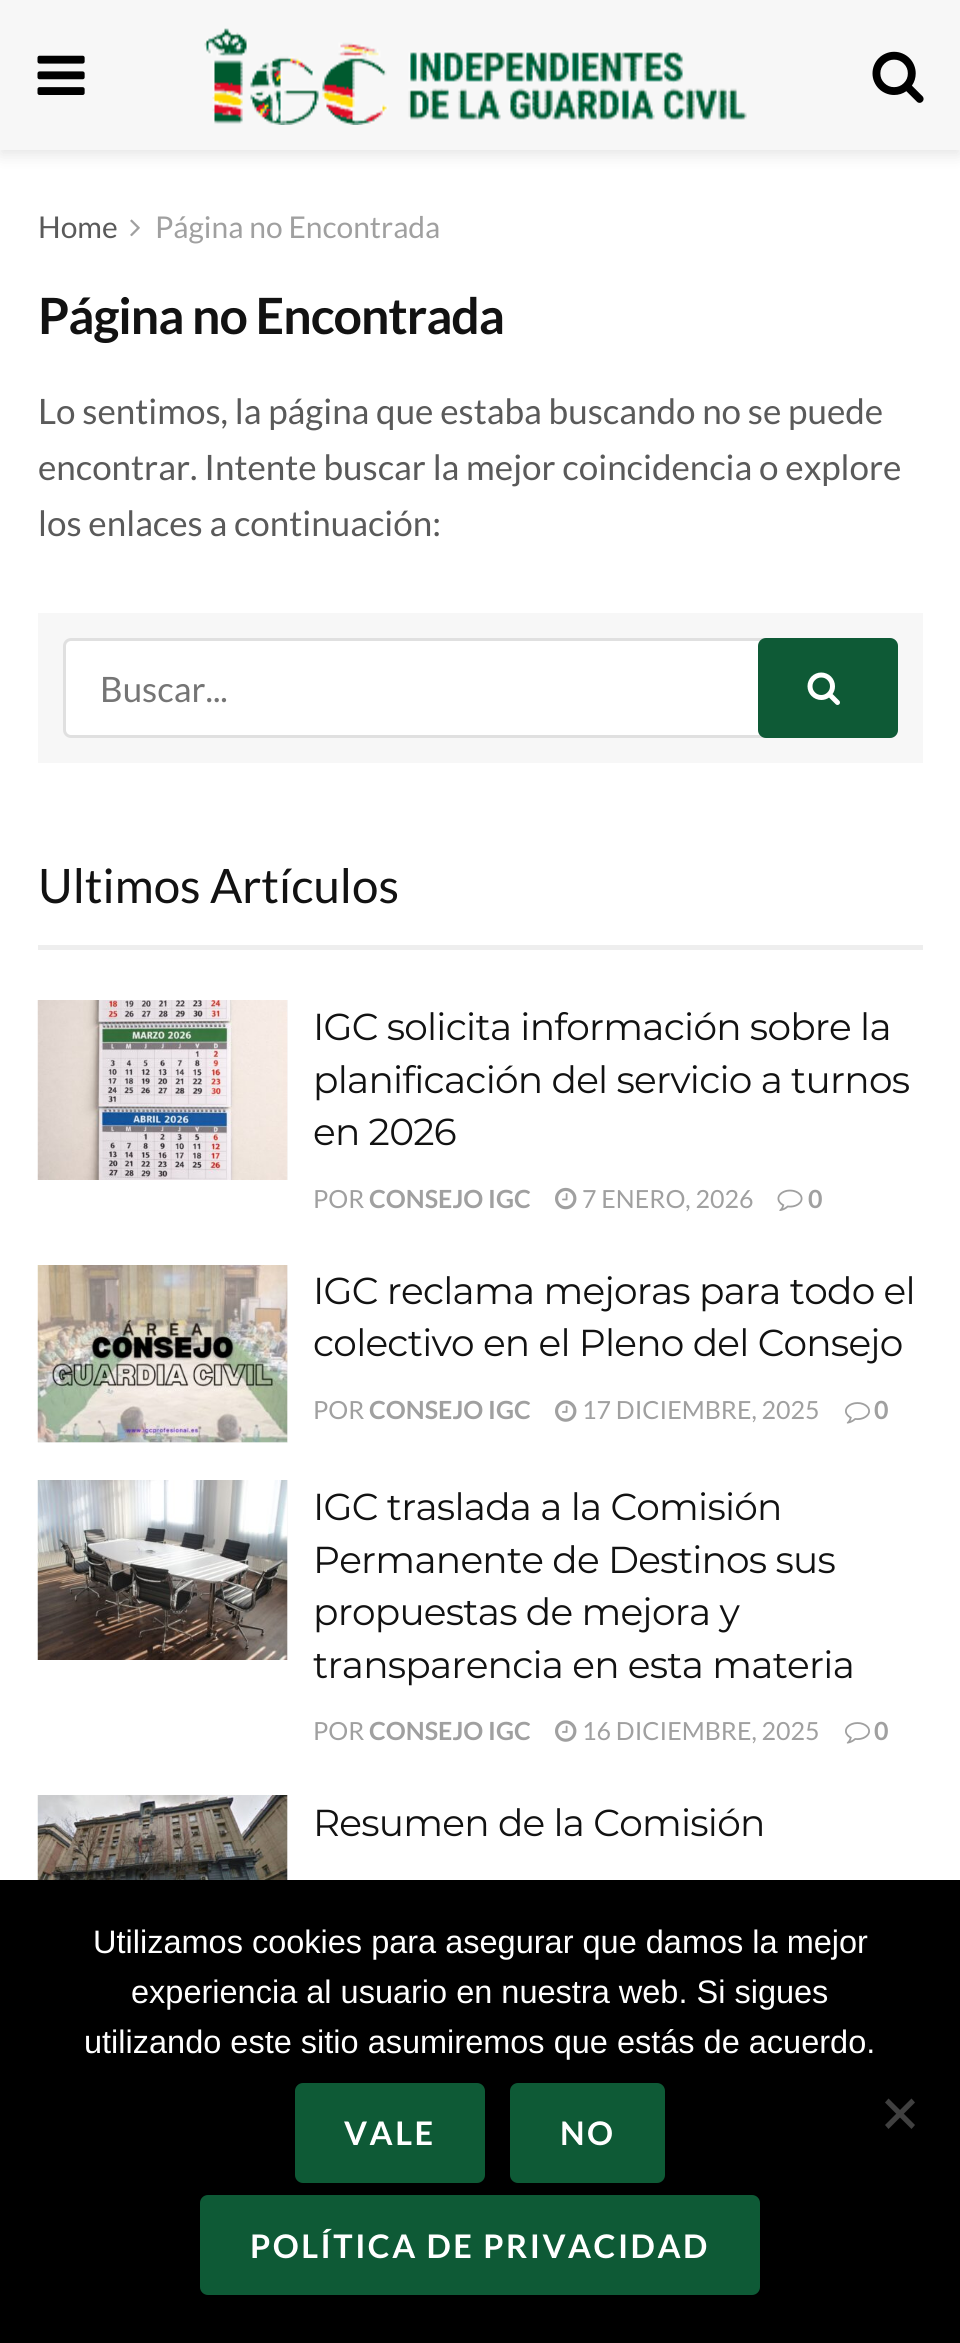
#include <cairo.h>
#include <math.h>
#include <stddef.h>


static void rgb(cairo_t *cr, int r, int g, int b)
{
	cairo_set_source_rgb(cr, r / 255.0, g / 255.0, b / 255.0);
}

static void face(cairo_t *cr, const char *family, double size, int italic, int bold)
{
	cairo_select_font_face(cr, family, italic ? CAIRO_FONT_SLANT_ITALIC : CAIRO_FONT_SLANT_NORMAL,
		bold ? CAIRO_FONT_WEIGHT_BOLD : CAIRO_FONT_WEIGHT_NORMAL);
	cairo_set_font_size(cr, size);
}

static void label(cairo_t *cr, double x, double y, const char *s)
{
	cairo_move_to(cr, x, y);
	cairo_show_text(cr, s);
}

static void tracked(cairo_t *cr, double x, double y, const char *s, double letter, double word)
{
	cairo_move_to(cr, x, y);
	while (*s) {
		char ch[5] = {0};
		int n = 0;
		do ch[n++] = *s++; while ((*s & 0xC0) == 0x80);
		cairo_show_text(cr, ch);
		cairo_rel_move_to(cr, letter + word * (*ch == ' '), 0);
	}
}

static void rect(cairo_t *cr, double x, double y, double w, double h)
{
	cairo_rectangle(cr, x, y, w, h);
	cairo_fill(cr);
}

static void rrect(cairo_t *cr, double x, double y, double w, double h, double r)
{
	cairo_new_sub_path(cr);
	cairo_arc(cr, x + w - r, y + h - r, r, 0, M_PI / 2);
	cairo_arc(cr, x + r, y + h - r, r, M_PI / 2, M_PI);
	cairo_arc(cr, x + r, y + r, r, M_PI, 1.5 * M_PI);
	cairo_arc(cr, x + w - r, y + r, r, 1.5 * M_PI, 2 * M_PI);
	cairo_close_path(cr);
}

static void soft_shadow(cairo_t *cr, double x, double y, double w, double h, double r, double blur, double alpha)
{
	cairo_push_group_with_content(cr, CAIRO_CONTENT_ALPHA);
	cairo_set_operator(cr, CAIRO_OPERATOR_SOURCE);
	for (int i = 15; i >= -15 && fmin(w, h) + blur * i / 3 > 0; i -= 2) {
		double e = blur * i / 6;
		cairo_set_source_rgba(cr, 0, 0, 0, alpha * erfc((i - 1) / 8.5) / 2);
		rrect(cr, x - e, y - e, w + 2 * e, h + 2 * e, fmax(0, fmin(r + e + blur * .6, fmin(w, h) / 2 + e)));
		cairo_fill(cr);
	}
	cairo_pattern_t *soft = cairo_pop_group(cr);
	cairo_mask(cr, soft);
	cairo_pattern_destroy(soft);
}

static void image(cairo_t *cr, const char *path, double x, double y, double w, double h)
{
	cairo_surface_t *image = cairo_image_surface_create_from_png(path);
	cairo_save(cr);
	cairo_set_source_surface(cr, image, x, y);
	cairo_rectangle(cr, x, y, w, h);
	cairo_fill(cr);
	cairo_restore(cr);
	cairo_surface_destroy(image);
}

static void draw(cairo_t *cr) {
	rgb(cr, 255, 255, 255);
	cairo_paint(cr);
	rgb(cr, 0, 0, 0);
	soft_shadow(cr, 0, 5, 960, 150, 0, 7.5, 0.1);
	rgb(cr, 247, 247, 247);
	rect(cr, 0, 0, 960, 150);
	image(cr, "image0.png", 37, 55, 48, 40);
	image(cr, "image1.png", 204, 28, 543, 97);
	image(cr, "image2.png", 872, 51, 52, 52);
	face(cr, "Lato", 30, 0, 0);
	rgb(cr, 90, 90, 90);
	label(cr, 38, 238, "Home");
	image(cr, "image3.png", 130, 219, 10, 18);
	rgb(cr, 160, 160, 160);
	label(cr, 155, 238, "Página no Encontrada");
	face(cr, "Lato", 50, 0, 1);
	rgb(cr, 18, 18, 18);
	tracked(cr, 38, 334, "Página no Encontrada", -1, 0);
	face(cr, "Lato", 35, 0, 0);
	rgb(cr, 90, 90, 90);
	label(cr, 38, 424, "Lo sentimos, la página que estaba buscando no se puede");
	label(cr, 38, 480, "encontrar. Intente buscar la mejor coincidencia o explore");
	label(cr, 38, 536, "los enlaces a continuación:");
	rgb(cr, 247, 247, 247);
	rect(cr, 38, 613, 885, 150);
	rgb(cr, 255, 255, 255);
	rrect(cr, 64.5, 639.5, 832, 97, 6.5);
	cairo_fill_preserve(cr);
	rgb(cr, 224, 224, 224);
	cairo_set_line_width(cr, 3);
	cairo_stroke(cr);
	rgb(cr, 117, 117, 117);
	label(cr, 100, 702, "Buscar...");
	rgb(cr, 14, 90, 54);
	rrect(cr, 758, 638, 140, 100, 8);
	cairo_fill(cr);
	image(cr, "image4.png", 807, 672, 33, 33);
	rgb(cr, 238, 238, 238);
	rect(cr, 38, 945, 885, 5);
	face(cr, "Lato", 47.5, 0, 0);
	rgb(cr, 18, 18, 18);
	label(cr, 38, 903, "Ultimos Artículos");
	rgb(cr, 247, 247, 247);
	rect(cr, 287, 1000, 1, 180);
	image(cr, "image5.png", 37, 1000, 251, 180);
	face(cr, "Montserrat", 37.5, 0, 0);
	rgb(cr, 18, 18, 18);
	tracked(cr, 313, 1040, "IGC solicita información sobre la", -0.75, 0);
	tracked(cr, 313, 1093, "planificación del servicio a turnos", -0.75, 0);
	tracked(cr, 313, 1145, "en 2026", -0.75, 0);
	face(cr, "Lato", 25, 0, 0);
	rgb(cr, 160, 160, 160);
	label(cr, 313, 1208, "POR");
	face(cr, "Lato", 25, 0, 1);
	label(cr, 369, 1208, "CONSEJO IGC");
	image(cr, "image6.png", 555, 1187, 22, 23);
	face(cr, "Lato", 25, 0, 0);
	label(cr, 582, 1208, "7 ENERO, 2026");
	image(cr, "image7.png", 777, 1189, 26, 22);
	face(cr, "Lato", 25, 0, 1);
	label(cr, 808, 1208, "0");
	rgb(cr, 247, 247, 247);
	rect(cr, 38, 1265, 250, 178);
	image(cr, "image8.png", 37, 1265, 251, 178);
	face(cr, "Montserrat", 37.5, 0, 0);
	rgb(cr, 18, 18, 18);
	tracked(cr, 313, 1304, "IGC reclama mejoras para todo el", -0.75, 0);
	tracked(cr, 313, 1356, "colectivo en el Pleno del Consejo", -0.75, 0);
	face(cr, "Lato", 25, 0, 0);
	rgb(cr, 160, 160, 160);
	label(cr, 313, 1419, "POR");
	face(cr, "Lato", 25, 0, 1);
	label(cr, 369, 1419, "CONSEJO IGC");
	image(cr, "image9.png", 555, 1400, 22, 22);
	face(cr, "Lato", 25, 0, 0);
	label(cr, 582, 1419, "17 DICIEMBRE, 2025");
	image(cr, "image10.png", 845, 1402, 25, 22);
	face(cr, "Lato", 25, 0, 1);
	label(cr, 874, 1419, "0");
	rgb(cr, 247, 247, 247);
	rect(cr, 287, 1480, 1, 180);
	image(cr, "image11.png", 37, 1480, 251, 180);
	face(cr, "Montserrat", 37.5, 0, 0);
	rgb(cr, 18, 18, 18);
	tracked(cr, 313, 1520, "IGC traslada a la Comisión", -0.75, 0);
	tracked(cr, 313, 1573, "Permanente de Destinos sus", -0.75, 0);
	tracked(cr, 313, 1625, "propuestas de mejora y", -0.75, 0);
	tracked(cr, 313, 1678, "transparencia en esta materia", -0.75, 0);
	face(cr, "Lato", 25, 0, 0);
	rgb(cr, 160, 160, 160);
	label(cr, 313, 1740, "POR");
	face(cr, "Lato", 25, 0, 1);
	label(cr, 369, 1740, "CONSEJO IGC");
	image(cr, "image9.png", 555, 1720, 22, 22);
	face(cr, "Lato", 25, 0, 0);
	label(cr, 582, 1740, "16 DICIEMBRE, 2025");
	image(cr, "image10.png", 845, 1722, 25, 22);
	face(cr, "Lato", 25, 0, 1);
	label(cr, 874, 1740, "0");
	rgb(cr, 247, 247, 247);
	rect(cr, 287, 1795, 1, 85);
	image(cr, "image12.png", 37, 1795, 251, 85);
	face(cr, "Montserrat", 37.5, 0, 0);
	rgb(cr, 18, 18, 18);
	tracked(cr, 313, 1836, "Resumen de la Comisión", -0.75, 0);
	rgb(cr, 0, 0, 0);
	rect(cr, 0, 1880, 960, 463);
	face(cr, "Liberation Sans", 32.5, 0, 0);
	rgb(cr, 255, 255, 255);
	label(cr, 93, 1953, "Utilizamos cookies para asegurar que damos la mejor");
	label(cr, 131, 2003, "experiencia al usuario en nuestra web. Si sigues");
	label(cr, 84, 2053, "utilizando este sitio asumiremos que estás de acuerdo.");
	rgb(cr, 64, 64, 64);
	cairo_new_path(cr);
	cairo_move_to(cr, 911.5, 2098.5);
	cairo_line_to(cr, 915, 2102.5);
	cairo_line_to(cr, 888.5, 2129);
	cairo_line_to(cr, 885, 2125);
	cairo_close_path(cr);
	cairo_fill(cr);
	cairo_new_path(cr);
	cairo_move_to(cr, 885, 2102.5);
	cairo_line_to(cr, 888.5, 2098.5);
	cairo_line_to(cr, 915, 2125);
	cairo_line_to(cr, 911.5, 2129);
	cairo_close_path(cr);
	cairo_fill(cr);
	rgb(cr, 14, 90, 54);
	rrect(cr, 295, 2083, 190, 100, 8);
	cairo_fill(cr);
	face(cr, "Lato", 32.5, 0, 1);
	rgb(cr, 255, 255, 255);
	tracked(cr, 344, 2145, "VALE", 2.5, 0);
	rgb(cr, 14, 90, 54);
	rrect(cr, 510, 2083, 155, 100, 8);
	cairo_fill(cr);
	rgb(cr, 255, 255, 255);
	tracked(cr, 560, 2145, "NO", 2.5, 0);
	rgb(cr, 14, 90, 54);
	rrect(cr, 200, 2195, 560, 100, 8);
	cairo_fill(cr);
	rgb(cr, 255, 255, 255);
	tracked(cr, 250, 2258, "POLÍTICA DE PRIVACIDAD", 2.5, 0);
}

int main(void) {
	cairo_surface_t *surface = cairo_image_surface_create(CAIRO_FORMAT_RGB24, 960, 2343);
	cairo_t *cr = cairo_create(surface);
	cairo_font_options_t *options = cairo_font_options_create();
	cairo_font_options_set_hint_metrics(options, CAIRO_HINT_METRICS_OFF);
	cairo_font_options_set_hint_style(options, CAIRO_HINT_STYLE_NONE);
	cairo_set_font_options(cr, options);
	cairo_set_miter_limit(cr, 4);
	draw(cr);
	cairo_surface_write_to_png(surface, "render.png");
	cairo_font_options_destroy(options);
	cairo_destroy(cr);
	cairo_surface_destroy(surface);
	return 0;
}
